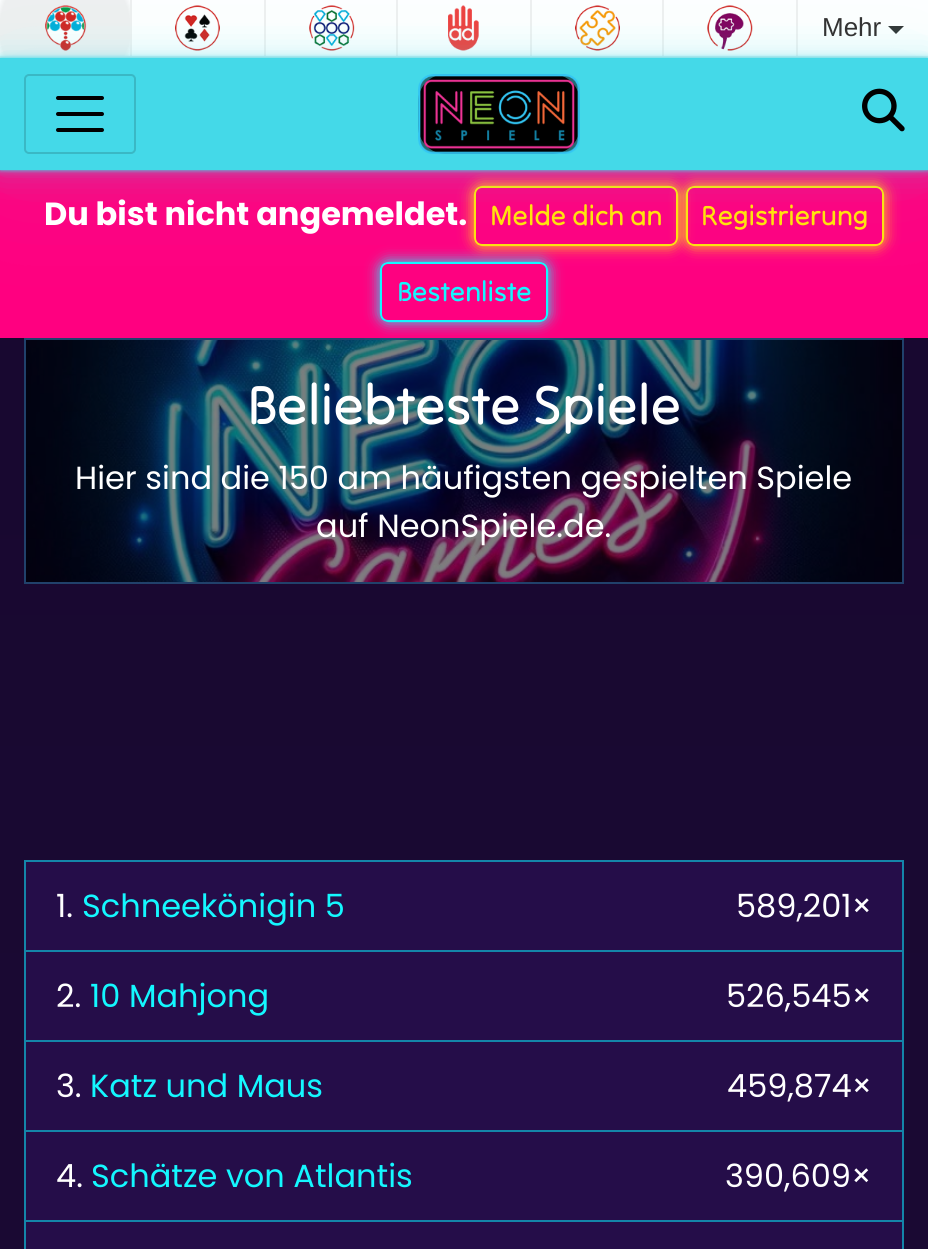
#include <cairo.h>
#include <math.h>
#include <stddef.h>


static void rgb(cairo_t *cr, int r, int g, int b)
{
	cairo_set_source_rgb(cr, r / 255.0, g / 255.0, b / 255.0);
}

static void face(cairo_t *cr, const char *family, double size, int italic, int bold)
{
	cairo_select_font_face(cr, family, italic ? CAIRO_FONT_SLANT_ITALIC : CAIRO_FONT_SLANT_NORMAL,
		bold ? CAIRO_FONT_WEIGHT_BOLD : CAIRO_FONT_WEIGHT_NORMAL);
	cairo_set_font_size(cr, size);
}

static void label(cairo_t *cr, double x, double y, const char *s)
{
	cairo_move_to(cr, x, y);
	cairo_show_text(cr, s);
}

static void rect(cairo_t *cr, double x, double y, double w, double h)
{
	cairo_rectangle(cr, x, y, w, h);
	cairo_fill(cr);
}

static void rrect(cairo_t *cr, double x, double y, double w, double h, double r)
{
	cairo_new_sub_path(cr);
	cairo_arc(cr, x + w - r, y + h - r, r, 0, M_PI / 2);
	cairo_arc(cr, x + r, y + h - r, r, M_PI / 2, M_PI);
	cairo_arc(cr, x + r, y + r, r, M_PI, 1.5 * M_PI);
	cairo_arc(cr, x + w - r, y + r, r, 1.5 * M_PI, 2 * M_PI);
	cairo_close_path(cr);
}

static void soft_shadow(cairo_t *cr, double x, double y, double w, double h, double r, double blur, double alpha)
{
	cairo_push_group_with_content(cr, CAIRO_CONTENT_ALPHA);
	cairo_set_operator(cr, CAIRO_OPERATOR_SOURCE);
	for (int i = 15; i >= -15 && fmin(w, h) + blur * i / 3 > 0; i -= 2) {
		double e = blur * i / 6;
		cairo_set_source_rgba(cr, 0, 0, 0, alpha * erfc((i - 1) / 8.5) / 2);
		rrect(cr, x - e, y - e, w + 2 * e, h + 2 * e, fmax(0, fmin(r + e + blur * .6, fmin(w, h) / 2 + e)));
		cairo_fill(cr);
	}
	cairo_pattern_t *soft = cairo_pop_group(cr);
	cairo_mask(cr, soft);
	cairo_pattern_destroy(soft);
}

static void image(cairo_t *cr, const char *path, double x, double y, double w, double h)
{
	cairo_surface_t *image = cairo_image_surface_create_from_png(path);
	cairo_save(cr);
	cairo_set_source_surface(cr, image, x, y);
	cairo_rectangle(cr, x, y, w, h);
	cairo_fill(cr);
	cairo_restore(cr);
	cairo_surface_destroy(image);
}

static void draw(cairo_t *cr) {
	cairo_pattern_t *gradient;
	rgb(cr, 255, 255, 255);
	cairo_paint(cr);
	gradient = cairo_pattern_create_linear(464, 0, 464, 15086);
	cairo_pattern_add_color_stop_rgba(gradient, 0, 0.09, 0.031, 0.18, 1);
	cairo_pattern_add_color_stop_rgba(gradient, 0.07, 0.102, 0.035, 0.2, 1);
	cairo_pattern_add_color_stop_rgba(gradient, 0.8, 0.102, 0.035, 0.2, 1);
	cairo_pattern_add_color_stop_rgba(gradient, 1, 0.047, 0.122, 0.298, 1);
	cairo_set_source(cr, gradient);
	cairo_pattern_destroy(gradient);
	rect(cr, 0, 338, 928, 911);
	rgb(cr, 240, 240, 240);
	rect(cr, 0, 56, 928, 2);
	gradient = cairo_pattern_create_radial(65, 28, 0, 65, 28, 651);
	cairo_pattern_add_color_stop_rgba(gradient, 0.1, 0.941, 0.941, 0.941, 1);
	cairo_pattern_add_color_stop_rgba(gradient, 0.11, 1, 1, 1, 1);
	cairo_set_source(cr, gradient);
	cairo_pattern_destroy(gradient);
	rect(cr, 0, 0, 130, 56);
	image(cr, "image2.png", 45, 5, 42, 46);
	rgb(cr, 240, 240, 240);
	rect(cr, 130, 0, 2, 56);
	image(cr, "image3.png", 175, 5, 45, 46);
	rect(cr, 264, 0, 2, 56);
	image(cr, "image4.png", 309, 5, 46, 46);
	rect(cr, 396, 0, 2, 56);
	image(cr, "image5.png", 448, 5, 31, 46);
	rect(cr, 530, 0, 2, 56);
	image(cr, "image6.png", 575, 5, 45, 46);
	rect(cr, 662, 0, 2, 56);
	image(cr, "image7.png", 707, 5, 46, 46);
	rect(cr, 796, 0, 2, 56);
	rgb(cr, 51, 51, 51);
	cairo_new_path(cr);
	cairo_move_to(cr, 888, 26);
	cairo_line_to(cr, 904, 26);
	cairo_line_to(cr, 896, 34);
	cairo_close_path(cr);
	cairo_fill(cr);
	rgb(cr, 20, 247, 255);
	soft_shadow(cr, 382, 264, 164, 56, 0, 28, 0.25);
	rgb(cr, 255, 0, 128);
	rect(cr, 0, 170, 928, 168);
	cairo_save(cr);
	cairo_set_fill_rule(cr, CAIRO_FILL_RULE_EVEN_ODD);
	cairo_new_path(cr);
	cairo_move_to(cr, 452, 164);
	cairo_line_to(cr, 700, 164);
	cairo_line_to(cr, 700, 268);
	cairo_line_to(cr, 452, 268);
	cairo_close_path(cr);
	cairo_move_to(cr, 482, 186);
	cairo_line_to(cr, 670, 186);
	cairo_curve_to(cr, 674.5, 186, 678, 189.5, 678, 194);
	cairo_line_to(cr, 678, 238);
	cairo_curve_to(cr, 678, 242.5, 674.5, 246, 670, 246);
	cairo_line_to(cr, 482, 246);
	cairo_curve_to(cr, 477.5, 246, 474, 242.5, 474, 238);
	cairo_line_to(cr, 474, 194);
	cairo_curve_to(cr, 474, 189.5, 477.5, 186, 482, 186);
	cairo_close_path(cr);
	cairo_clip(cr);
	rgb(cr, 255, 226, 13);
	soft_shadow(cr, 474, 186, 204, 60, 8, 7, 1);
	cairo_restore(cr);
	rrect(cr, 475, 187, 202, 58, 7);
	rgb(cr, 255, 226, 13);
	cairo_stroke(cr);
	cairo_save(cr);
	cairo_set_fill_rule(cr, CAIRO_FILL_RULE_EVEN_ODD);
	cairo_new_path(cr);
	cairo_move_to(cr, 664, 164);
	cairo_line_to(cr, 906, 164);
	cairo_line_to(cr, 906, 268);
	cairo_line_to(cr, 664, 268);
	cairo_close_path(cr);
	cairo_move_to(cr, 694, 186);
	cairo_line_to(cr, 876, 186);
	cairo_curve_to(cr, 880.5, 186, 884, 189.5, 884, 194);
	cairo_line_to(cr, 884, 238);
	cairo_curve_to(cr, 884, 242.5, 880.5, 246, 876, 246);
	cairo_line_to(cr, 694, 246);
	cairo_curve_to(cr, 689.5, 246, 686, 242.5, 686, 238);
	cairo_line_to(cr, 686, 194);
	cairo_curve_to(cr, 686, 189.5, 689.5, 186, 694, 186);
	cairo_close_path(cr);
	cairo_clip(cr);
	rgb(cr, 255, 226, 13);
	soft_shadow(cr, 686, 186, 198, 60, 8, 7, 1);
	cairo_restore(cr);
	rrect(cr, 687, 187, 196, 58, 7);
	cairo_stroke(cr);
	image(cr, "image8.png", 26, 340, 876, 242);
	cairo_save(cr);
	cairo_set_fill_rule(cr, CAIRO_FILL_RULE_EVEN_ODD);
	cairo_new_path(cr);
	cairo_move_to(cr, 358, 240);
	cairo_line_to(cr, 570, 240);
	cairo_line_to(cr, 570, 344);
	cairo_line_to(cr, 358, 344);
	cairo_close_path(cr);
	cairo_move_to(cr, 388, 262);
	cairo_line_to(cr, 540, 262);
	cairo_curve_to(cr, 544.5, 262, 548, 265.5, 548, 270);
	cairo_line_to(cr, 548, 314);
	cairo_curve_to(cr, 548, 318.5, 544.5, 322, 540, 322);
	cairo_line_to(cr, 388, 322);
	cairo_curve_to(cr, 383.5, 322, 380, 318.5, 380, 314);
	cairo_line_to(cr, 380, 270);
	cairo_curve_to(cr, 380, 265.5, 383.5, 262, 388, 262);
	cairo_close_path(cr);
	cairo_clip(cr);
	rgb(cr, 20, 247, 255);
	soft_shadow(cr, 380, 262, 168, 60, 8, 7, 1);
	cairo_restore(cr);
	rrect(cr, 381, 263, 166, 58, 7);
	rgb(cr, 20, 247, 255);
	cairo_stroke(cr);
	cairo_rectangle(cr, 25, 339, 878, 244);
	cairo_set_source_rgba(cr, 0.204, 0.78, 0.957, 0.3);
	cairo_stroke(cr);
	rgb(cr, 68, 217, 232);
	soft_shadow(cr, 0, 58, 928, 112, 0, 64, 0.1);
	soft_shadow(cr, 0, 58, 928, 112, 0, 16, 0.3);
	soft_shadow(cr, 0, 58, 928, 112, 0, 4, 0.4);
	soft_shadow(cr, 0, 58, 928, 112, 0, 2, 0.9);
	rgb(cr, 68, 217, 232);
	rect(cr, 0, 58, 928, 112);
	rrect(cr, 25, 75, 110, 78, 4);
	rgb(cr, 58, 184, 197);
	cairo_stroke(cr);
	cairo_new_path(cr);
	cairo_move_to(cr, 58, 98);
	cairo_line_to(cr, 102, 98);
	cairo_move_to(cr, 58, 114);
	cairo_line_to(cr, 102, 114);
	cairo_move_to(cr, 58, 130);
	cairo_line_to(cr, 102, 130);
	rgb(cr, 0, 0, 0);
	cairo_set_line_width(cr, 4);
	cairo_set_line_cap(cr, CAIRO_LINE_CAP_ROUND);
	cairo_stroke(cr);
	rrect(cr, 418, 74, 162, 80, 28);
	cairo_fill(cr);
	image(cr, "image0.png", 418, 74, 162, 80);
	image(cr, "image1.png", 862, 88, 43, 44);
	face(cr, "Liberation Sans", 26, 0, 0);
	rgb(cr, 51, 51, 51);
	label(cr, 822, 36, "Mehr");
	face(cr, "Poppins", 32, 0, 1);
	rgb(cr, 255, 255, 255);
	label(cr, 44, 225, "Du bist nicht angemeldet.");
	face(cr, "Tilt Neon", 28, 0, 0);
	rgb(cr, 255, 226, 13);
	label(cr, 490, 225, "Melde dich an");
	label(cr, 701, 225, "Registrierung");
	rgb(cr, 20, 247, 255);
	label(cr, 397, 301, "Bestenliste");
	face(cr, "Tilt Neon", 55.75, 0, 0);
	rgb(cr, 255, 255, 255);
	label(cr, 247, 424, "Beliebteste Spiele");
	face(cr, "Poppins", 32, 0, 0);
	label(cr, 75, 489, "Hier sind die 150 am häufigsten gespielten Spiele");
	label(cr, 316, 537, "auf NeonSpiele.de.");
	rgb(cr, 37, 13, 73);
	cairo_rectangle(cr, 25, 861, 878, 90);
	cairo_fill_preserve(cr);
	rgb(cr, 20, 133, 169);
	cairo_set_line_width(cr, 2);
	cairo_set_line_cap(cr, CAIRO_LINE_CAP_BUTT);
	cairo_stroke(cr);
	rgb(cr, 255, 255, 255);
	label(cr, 56, 917, "1.");
	rgb(cr, 20, 247, 255);
	label(cr, 82, 917, "Schneekönigin 5");
	rgb(cr, 255, 255, 255);
	label(cr, 736, 917, "589,201×");
	rgb(cr, 37, 13, 73);
	cairo_rectangle(cr, 25, 951, 878, 90);
	cairo_fill_preserve(cr);
	rgb(cr, 20, 133, 169);
	cairo_stroke(cr);
	rgb(cr, 255, 255, 255);
	label(cr, 56, 1007, "2.");
	rgb(cr, 20, 247, 255);
	label(cr, 90, 1007, "10 Mahjong");
	rgb(cr, 255, 255, 255);
	label(cr, 726, 1007, "526,545×");
	rgb(cr, 37, 13, 73);
	cairo_rectangle(cr, 25, 1041, 878, 90);
	cairo_fill_preserve(cr);
	rgb(cr, 20, 133, 169);
	cairo_stroke(cr);
	rgb(cr, 255, 255, 255);
	label(cr, 56, 1097, "3.");
	rgb(cr, 20, 247, 255);
	label(cr, 90, 1097, "Katz und Maus");
	rgb(cr, 255, 255, 255);
	label(cr, 727, 1097, "459,874×");
	rgb(cr, 37, 13, 73);
	cairo_rectangle(cr, 25, 1131, 878, 90);
	cairo_fill_preserve(cr);
	rgb(cr, 20, 133, 169);
	cairo_stroke(cr);
	rgb(cr, 255, 255, 255);
	label(cr, 56, 1187, "4.");
	rgb(cr, 20, 247, 255);
	label(cr, 91, 1187, "Schätze von Atlantis");
	rgb(cr, 255, 255, 255);
	label(cr, 725, 1187, "390,609×");
	rgb(cr, 37, 13, 73);
	cairo_rectangle(cr, 25, 1221, 878, 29);
	cairo_fill_preserve(cr);
	rgb(cr, 20, 133, 169);
	cairo_stroke(cr);
}

int main(void) {
	cairo_surface_t *surface = cairo_image_surface_create(CAIRO_FORMAT_RGB24, 928, 1249);
	cairo_t *cr = cairo_create(surface);
	cairo_font_options_t *options = cairo_font_options_create();
	cairo_font_options_set_hint_metrics(options, CAIRO_HINT_METRICS_OFF);
	cairo_font_options_set_hint_style(options, CAIRO_HINT_STYLE_NONE);
	cairo_set_font_options(cr, options);
	cairo_set_miter_limit(cr, 4);
	draw(cr);
	cairo_surface_write_to_png(surface, "render.png");
	cairo_font_options_destroy(options);
	cairo_destroy(cr);
	cairo_surface_destroy(surface);
	return 0;
}
